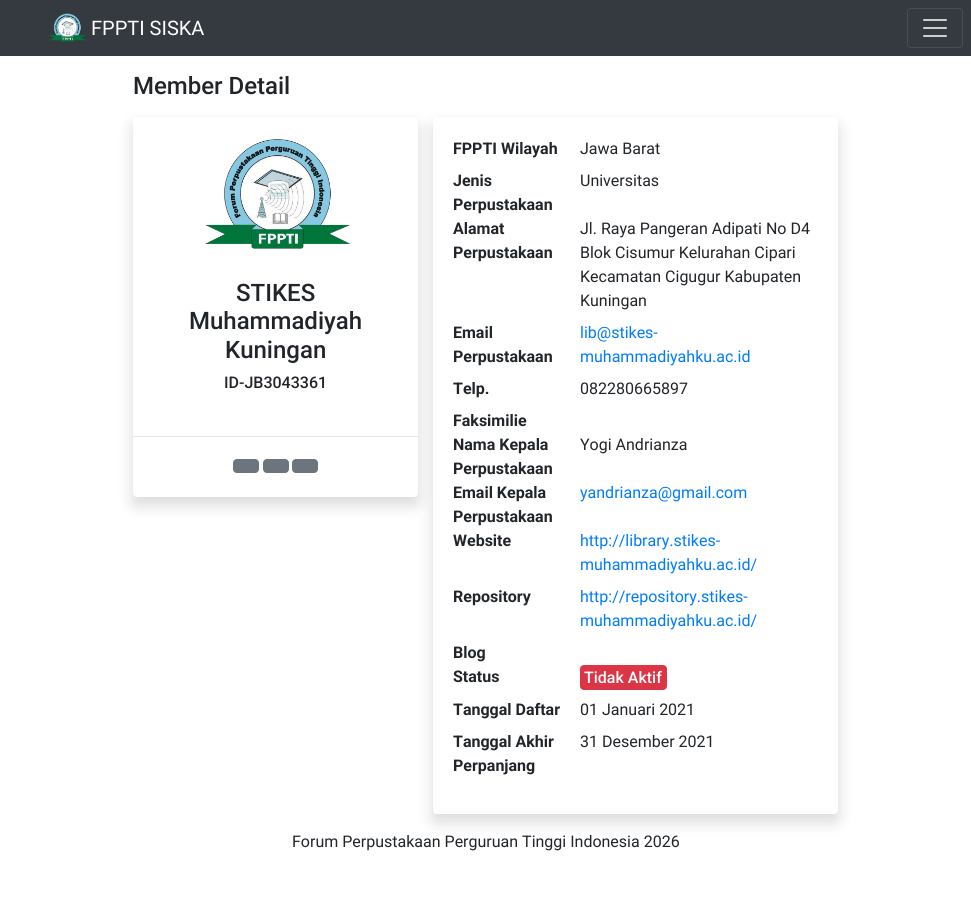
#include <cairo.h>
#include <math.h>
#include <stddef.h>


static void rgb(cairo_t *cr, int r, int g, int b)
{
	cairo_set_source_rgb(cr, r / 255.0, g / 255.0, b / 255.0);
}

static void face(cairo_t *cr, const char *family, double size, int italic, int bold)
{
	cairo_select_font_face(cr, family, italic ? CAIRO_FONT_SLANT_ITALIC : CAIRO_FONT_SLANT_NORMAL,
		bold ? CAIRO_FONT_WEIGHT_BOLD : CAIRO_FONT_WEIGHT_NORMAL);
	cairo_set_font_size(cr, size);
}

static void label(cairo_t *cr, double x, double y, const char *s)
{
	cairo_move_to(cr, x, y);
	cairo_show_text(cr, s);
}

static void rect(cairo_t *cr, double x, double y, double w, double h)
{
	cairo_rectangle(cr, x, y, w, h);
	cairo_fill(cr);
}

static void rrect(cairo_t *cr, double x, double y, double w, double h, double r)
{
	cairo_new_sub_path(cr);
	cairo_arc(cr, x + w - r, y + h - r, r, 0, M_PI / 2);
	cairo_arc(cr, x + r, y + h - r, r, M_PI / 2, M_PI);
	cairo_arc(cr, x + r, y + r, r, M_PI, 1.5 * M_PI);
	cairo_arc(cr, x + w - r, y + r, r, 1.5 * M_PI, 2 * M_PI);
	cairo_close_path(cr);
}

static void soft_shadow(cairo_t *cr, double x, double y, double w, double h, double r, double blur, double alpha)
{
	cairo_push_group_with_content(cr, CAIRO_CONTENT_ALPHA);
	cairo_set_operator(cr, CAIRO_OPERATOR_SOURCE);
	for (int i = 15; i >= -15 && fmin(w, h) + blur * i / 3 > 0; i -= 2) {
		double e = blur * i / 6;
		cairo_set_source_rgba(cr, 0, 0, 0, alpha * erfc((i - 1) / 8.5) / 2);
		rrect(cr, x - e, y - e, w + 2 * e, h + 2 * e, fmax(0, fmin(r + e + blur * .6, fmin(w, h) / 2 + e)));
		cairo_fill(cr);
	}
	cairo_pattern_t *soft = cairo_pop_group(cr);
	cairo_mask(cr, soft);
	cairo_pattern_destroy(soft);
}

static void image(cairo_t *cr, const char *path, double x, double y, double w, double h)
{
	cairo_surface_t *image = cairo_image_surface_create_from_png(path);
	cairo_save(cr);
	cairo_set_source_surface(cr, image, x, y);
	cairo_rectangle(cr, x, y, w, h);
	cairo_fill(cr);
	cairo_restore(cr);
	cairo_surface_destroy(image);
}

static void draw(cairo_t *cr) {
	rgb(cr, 255, 255, 255);
	cairo_paint(cr);
	rgb(cr, 52, 58, 64);
	rect(cr, 0, 0, 971, 56);
	image(cr, "image0.png", 49, 13, 37, 29);
	face(cr, "Roboto", 20, 0, 0);
	rgb(cr, 255, 255, 255);
	label(cr, 91, 35, "FPPTI SISKA");
	rrect(cr, 907.5, 8.5, 55, 39, 3.5);
	rgb(cr, 72, 78, 83);
	cairo_set_line_width(cr, 1);
	cairo_stroke(cr);
	image(cr, "image1.png", 923, 19, 24, 18);
	face(cr, "Roboto Medium", 24, 0, 0);
	rgb(cr, 33, 37, 41);
	label(cr, 133, 94, "Member Detail");
	rgb(cr, 0, 0, 0);
	soft_shadow(cr, 133, 125, 285, 380, 4, 8, 0.15);
	rgb(cr, 255, 255, 255);
	rrect(cr, 133, 117, 285, 380, 4);
	cairo_fill(cr);
	image(cr, "image2.png", 205, 139, 146, 110);
	rgb(cr, 33, 37, 41);
	label(cr, 236, 301, "STIKES");
	label(cr, 189, 329, "Muhammadiyah");
	label(cr, 225, 358, "Kuningan");
	face(cr, "Roboto Medium", 16, 0, 0);
	label(cr, 224, 388, "ID-JB3043361");
	rgb(cr, 230, 230, 230);
	rect(cr, 133, 436, 285, 1);
	rgb(cr, 108, 117, 125);
	rrect(cr, 233.5, 459.5, 25, 13, 3.5);
	cairo_fill_preserve(cr);
	cairo_stroke(cr);
	rrect(cr, 263.5, 459.5, 25, 13, 3.5);
	cairo_fill_preserve(cr);
	cairo_stroke(cr);
	rrect(cr, 292.5, 459.5, 25, 13, 3.5);
	cairo_fill_preserve(cr);
	cairo_stroke(cr);
	rgb(cr, 0, 0, 0);
	soft_shadow(cr, 433, 125, 405, 697, 4, 8, 0.15);
	rgb(cr, 255, 255, 255);
	rrect(cr, 433, 117, 405, 697, 4);
	cairo_fill(cr);
	face(cr, "Roboto", 16, 0, 1);
	rgb(cr, 33, 37, 41);
	label(cr, 453, 154, "FPPTI Wilayah");
	face(cr, "Roboto", 16, 0, 0);
	label(cr, 580, 154, "Jawa Barat");
	face(cr, "Roboto", 16, 0, 1);
	label(cr, 453, 186, "Jenis");
	label(cr, 453, 210, "Perpustakaan");
	face(cr, "Roboto", 16, 0, 0);
	label(cr, 580, 186, "Universitas");
	face(cr, "Roboto", 16, 0, 1);
	label(cr, 453, 234, "Alamat");
	label(cr, 453, 258, "Perpustakaan");
	face(cr, "Roboto", 16, 0, 0);
	label(cr, 580, 234, "Jl. Raya Pangeran Adipati No D4");
	label(cr, 580, 258, "Blok Cisumur Kelurahan Cipari");
	label(cr, 580, 282, "Kecamatan Cigugur Kabupaten");
	label(cr, 580, 306, "Kuningan");
	face(cr, "Roboto", 16, 0, 1);
	label(cr, 453, 338, "Email");
	label(cr, 453, 362, "Perpustakaan");
	face(cr, "Roboto", 16, 0, 0);
	rgb(cr, 0, 123, 255);
	label(cr, 580, 338, "lib@stikes-");
	label(cr, 580, 362, "muhammadiyahku.ac.id");
	face(cr, "Roboto", 16, 0, 1);
	rgb(cr, 33, 37, 41);
	label(cr, 453, 394, "Telp.");
	face(cr, "Roboto", 16, 0, 0);
	label(cr, 580, 394, "082280665897");
	face(cr, "Roboto", 16, 0, 1);
	label(cr, 453, 426, "Faksimilie");
	label(cr, 453, 450, "Nama Kepala");
	label(cr, 453, 474, "Perpustakaan");
	face(cr, "Roboto", 16, 0, 0);
	label(cr, 580, 450, "Yogi Andrianza");
	face(cr, "Roboto", 16, 0, 1);
	label(cr, 453, 498, "Email Kepala");
	label(cr, 453, 522, "Perpustakaan");
	face(cr, "Roboto", 16, 0, 0);
	rgb(cr, 0, 123, 255);
	label(cr, 580, 498, "yandrianza@gmail.com");
	face(cr, "Roboto", 16, 0, 1);
	rgb(cr, 33, 37, 41);
	label(cr, 453, 546, "Website");
	face(cr, "Roboto", 16, 0, 0);
	rgb(cr, 0, 123, 255);
	label(cr, 580, 546, "http://library.stikes-");
	label(cr, 580, 570, "muhammadiyahku.ac.id/");
	face(cr, "Roboto", 16, 0, 1);
	rgb(cr, 33, 37, 41);
	label(cr, 453, 602, "Repository");
	face(cr, "Roboto", 16, 0, 0);
	rgb(cr, 0, 123, 255);
	label(cr, 580, 602, "http://repository.stikes-");
	label(cr, 580, 626, "muhammadiyahku.ac.id/");
	face(cr, "Roboto", 16, 0, 1);
	rgb(cr, 33, 37, 41);
	label(cr, 453, 658, "Blog");
	label(cr, 453, 682, "Status");
	rgb(cr, 220, 53, 69);
	rrect(cr, 580, 665, 87, 25, 4);
	cairo_fill(cr);
	face(cr, "Roboto Medium", 16, 0, 0);
	rgb(cr, 255, 255, 255);
	label(cr, 584, 683, "Tidak Aktif");
	face(cr, "Roboto", 16, 0, 1);
	rgb(cr, 33, 37, 41);
	label(cr, 453, 715, "Tanggal Daftar");
	face(cr, "Roboto", 16, 0, 0);
	label(cr, 580, 715, "01 Januari 2021");
	face(cr, "Roboto", 16, 0, 1);
	label(cr, 453, 747, "Tanggal Akhir");
	label(cr, 453, 771, "Perpanjang");
	face(cr, "Roboto", 16, 0, 0);
	label(cr, 580, 747, "31 Desember 2021");
	label(cr, 292, 847, "Forum Perpustakaan Perguruan Tinggi Indonesia 2026");
}

int main(void) {
	cairo_surface_t *surface = cairo_image_surface_create(CAIRO_FORMAT_RGB24, 971, 920);
	cairo_t *cr = cairo_create(surface);
	cairo_font_options_t *options = cairo_font_options_create();
	cairo_font_options_set_hint_metrics(options, CAIRO_HINT_METRICS_OFF);
	cairo_font_options_set_hint_style(options, CAIRO_HINT_STYLE_NONE);
	cairo_set_font_options(cr, options);
	cairo_set_miter_limit(cr, 4);
	draw(cr);
	cairo_surface_write_to_png(surface, "render.png");
	cairo_font_options_destroy(options);
	cairo_destroy(cr);
	cairo_surface_destroy(surface);
	return 0;
}
